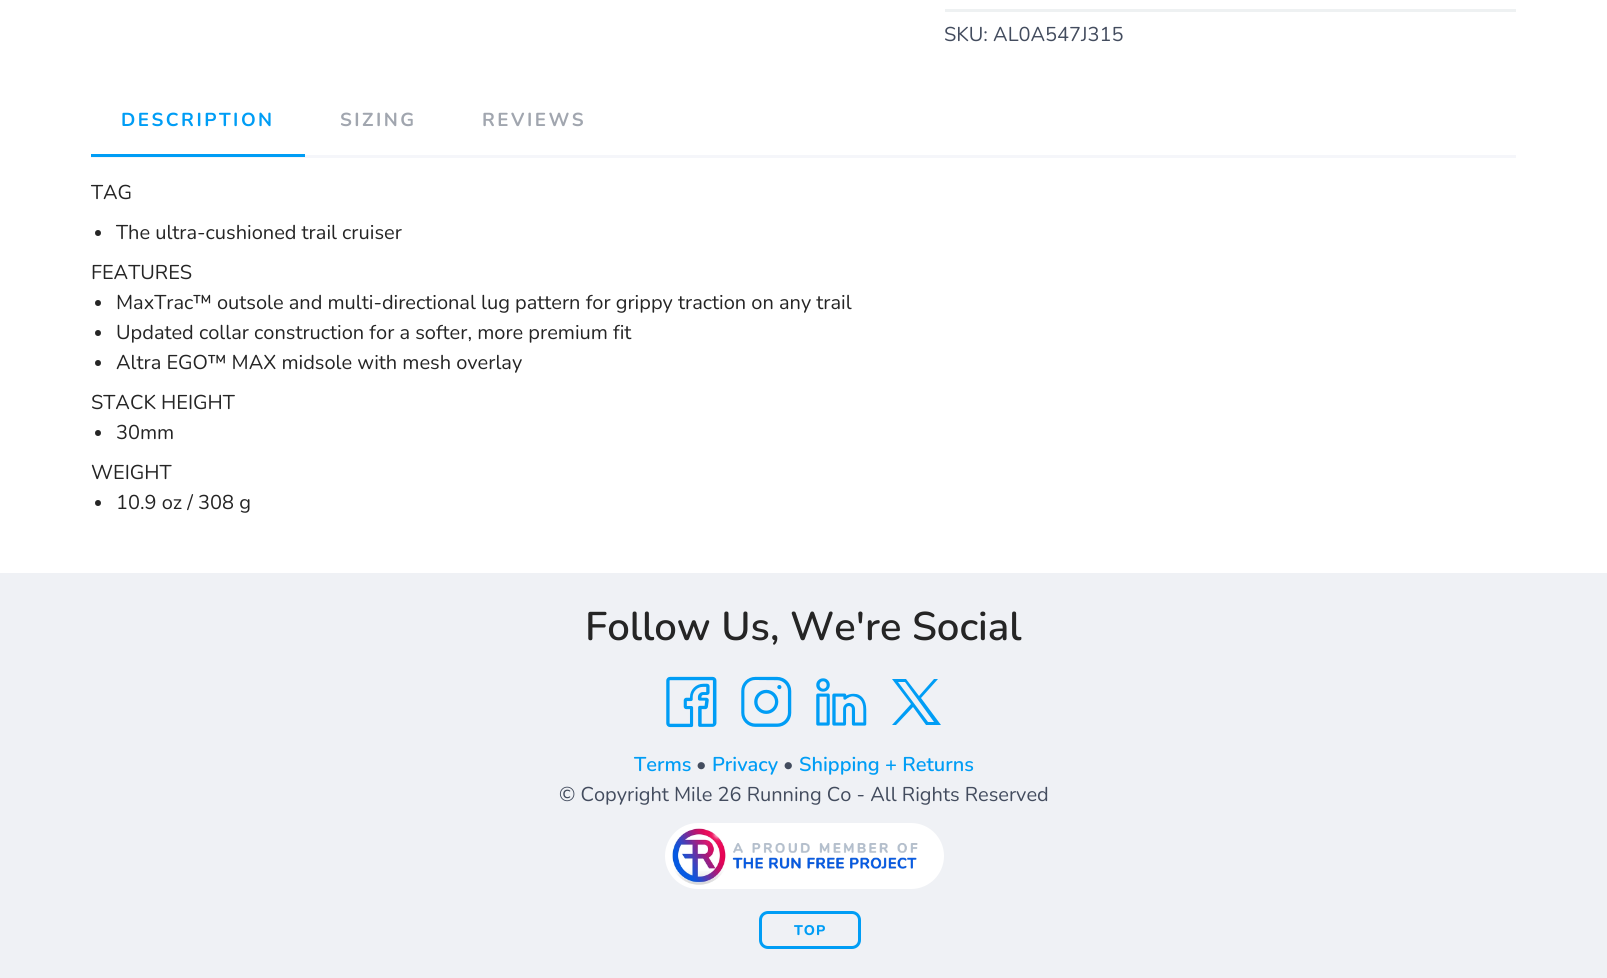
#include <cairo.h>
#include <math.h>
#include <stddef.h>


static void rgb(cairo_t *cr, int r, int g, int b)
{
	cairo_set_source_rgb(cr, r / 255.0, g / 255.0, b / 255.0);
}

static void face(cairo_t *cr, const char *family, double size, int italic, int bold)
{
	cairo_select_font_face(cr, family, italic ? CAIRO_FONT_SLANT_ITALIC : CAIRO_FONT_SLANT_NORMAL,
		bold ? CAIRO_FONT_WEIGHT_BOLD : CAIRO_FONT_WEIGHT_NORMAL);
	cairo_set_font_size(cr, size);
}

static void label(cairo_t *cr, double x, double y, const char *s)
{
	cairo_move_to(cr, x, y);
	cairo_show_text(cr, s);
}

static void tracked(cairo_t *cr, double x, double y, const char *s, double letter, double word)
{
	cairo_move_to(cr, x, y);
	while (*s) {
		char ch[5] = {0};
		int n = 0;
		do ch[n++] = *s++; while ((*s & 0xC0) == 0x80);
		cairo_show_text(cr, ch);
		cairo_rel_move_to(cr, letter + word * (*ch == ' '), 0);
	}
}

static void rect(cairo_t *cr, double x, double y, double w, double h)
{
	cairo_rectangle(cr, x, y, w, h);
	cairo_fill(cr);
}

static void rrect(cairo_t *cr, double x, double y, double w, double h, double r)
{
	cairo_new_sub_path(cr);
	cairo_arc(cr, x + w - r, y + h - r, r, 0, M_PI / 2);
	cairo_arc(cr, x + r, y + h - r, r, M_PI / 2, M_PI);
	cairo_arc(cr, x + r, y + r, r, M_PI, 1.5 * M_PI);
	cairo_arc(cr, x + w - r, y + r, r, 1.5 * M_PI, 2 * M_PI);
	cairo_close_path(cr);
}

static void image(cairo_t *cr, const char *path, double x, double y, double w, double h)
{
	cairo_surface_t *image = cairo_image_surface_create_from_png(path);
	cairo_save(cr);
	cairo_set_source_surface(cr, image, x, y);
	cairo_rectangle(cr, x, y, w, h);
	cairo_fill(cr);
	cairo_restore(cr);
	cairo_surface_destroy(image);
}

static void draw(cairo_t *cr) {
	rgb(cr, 255, 255, 255);
	cairo_paint(cr);
	rgb(cr, 238, 241, 242);
	rect(cr, 945, 9, 571, 3);
	face(cr, "Nunito", 20, 0, 0);
	rgb(cr, 67, 76, 94);
	label(cr, 944, 41, "SKU: AL0A547J315");
	rgb(cr, 245, 246, 250);
	rect(cr, 91, 155, 1425, 3);
	face(cr, "Nunito", 18.75, 0, 1);
	rgb(cr, 0, 157, 245);
	tracked(cr, 121, 126, "DESCRIPTION", 2.5, 0);
	rect(cr, 91, 154, 214, 3);
	rgb(cr, 161, 166, 175);
	tracked(cr, 340, 126, "SIZING", 2.5, 0);
	tracked(cr, 482, 126, "REVIEWS", 2.5, 0);
	face(cr, "Nunito", 20, 0, 0);
	rgb(cr, 37, 37, 37);
	label(cr, 91, 199, "TAG");
	cairo_new_path(cr);
	cairo_arc(cr, 98, 233, 3, 0, 2 * M_PI);
	cairo_fill(cr);
	label(cr, 116, 239, "The ultra-cushioned trail cruiser");
	label(cr, 91, 279, "FEATURES");
	cairo_new_path(cr);
	cairo_arc(cr, 98, 303, 3, 0, 2 * M_PI);
	cairo_fill(cr);
	label(cr, 116, 309, "MaxTrac™ outsole and multi-directional lug pattern for grippy traction on any trail");
	cairo_new_path(cr);
	cairo_arc(cr, 98, 333, 3, 0, 2 * M_PI);
	cairo_fill(cr);
	label(cr, 116, 339, "Updated collar construction for a softer, more premium fit");
	cairo_new_path(cr);
	cairo_arc(cr, 98, 363, 3, 0, 2 * M_PI);
	cairo_fill(cr);
	label(cr, 116, 369, "Altra EGO™ MAX midsole with mesh overlay");
	label(cr, 91, 409, "STACK HEIGHT");
	cairo_new_path(cr);
	cairo_arc(cr, 98, 433, 3, 0, 2 * M_PI);
	cairo_fill(cr);
	label(cr, 116, 439, "30mm");
	label(cr, 91, 479, "WEIGHT");
	cairo_new_path(cr);
	cairo_arc(cr, 98, 503, 3, 0, 2 * M_PI);
	cairo_fill(cr);
	label(cr, 116, 509, "10.9 oz / 308 g");
	rgb(cr, 239, 241, 245);
	rect(cr, 0, 573, 1607, 405);
	face(cr, "Nunito SemiBold", 40, 0, 0);
	rgb(cr, 37, 37, 37);
	label(cr, 585, 640, "Follow Us, We're Social");
	image(cr, "image0.png", 666, 676, 51, 52);
	image(cr, "image1.png", 741, 676, 51, 51);
	image(cr, "image2.png", 816, 678, 51, 48);
	rgb(cr, 0, 157, 245);
	cairo_new_path(cr);
	cairo_move_to(cr, 892, 679);
	cairo_line_to(cr, 911, 704);
	cairo_line_to(cr, 892, 725);
	cairo_line_to(cr, 896, 725);
	cairo_line_to(cr, 913, 707);
	cairo_line_to(cr, 926, 725);
	cairo_line_to(cr, 941, 725);
	cairo_line_to(cr, 921, 698);
	cairo_line_to(cr, 938, 679);
	cairo_line_to(cr, 934, 679);
	cairo_line_to(cr, 919, 696);
	cairo_line_to(cr, 906, 679);
	cairo_close_path(cr);
	cairo_move_to(cr, 898, 682);
	cairo_line_to(cr, 905, 682);
	cairo_line_to(cr, 934, 722);
	cairo_line_to(cr, 928, 722);
	cairo_close_path(cr);
	cairo_fill(cr);
	face(cr, "Nunito SemiBold", 20, 0, 0);
	label(cr, 634, 771, "Terms");
	face(cr, "Nunito", 20, 0, 0);
	rgb(cr, 67, 76, 94);
	label(cr, 696, 771, "•");
	face(cr, "Nunito SemiBold", 20, 0, 0);
	rgb(cr, 0, 157, 245);
	label(cr, 712, 771, "Privacy");
	face(cr, "Nunito", 20, 0, 0);
	rgb(cr, 67, 76, 94);
	label(cr, 783, 771, "•");
	face(cr, "Nunito SemiBold", 20, 0, 0);
	rgb(cr, 0, 157, 245);
	label(cr, 799, 771, "Shipping + Returns");
	face(cr, "Nunito", 20, 0, 0);
	rgb(cr, 67, 76, 94);
	label(cr, 559, 801, "© Copyright Mile 26 Running Co - All Rights Reserved");
	rgb(cr, 255, 255, 255);
	rrect(cr, 665, 823, 279, 66, 33);
	cairo_fill(cr);
	image(cr, "image3.png", 672, 828, 246, 57);
	rrect(cr, 760.5, 912.5, 99, 35, 7.5);
	rgb(cr, 0, 157, 245);
	cairo_set_line_width(cr, 3);
	cairo_stroke(cr);
	face(cr, "Nunito ExtraBold", 14, 0, 0);
	tracked(cr, 794, 935, "TOP", 1, 0);
}

int main(void) {
	cairo_surface_t *surface = cairo_image_surface_create(CAIRO_FORMAT_RGB24, 1607, 978);
	cairo_t *cr = cairo_create(surface);
	cairo_font_options_t *options = cairo_font_options_create();
	cairo_font_options_set_hint_metrics(options, CAIRO_HINT_METRICS_OFF);
	cairo_font_options_set_hint_style(options, CAIRO_HINT_STYLE_NONE);
	cairo_set_font_options(cr, options);
	cairo_set_miter_limit(cr, 4);
	draw(cr);
	cairo_surface_write_to_png(surface, "render.png");
	cairo_font_options_destroy(options);
	cairo_destroy(cr);
	cairo_surface_destroy(surface);
	return 0;
}
